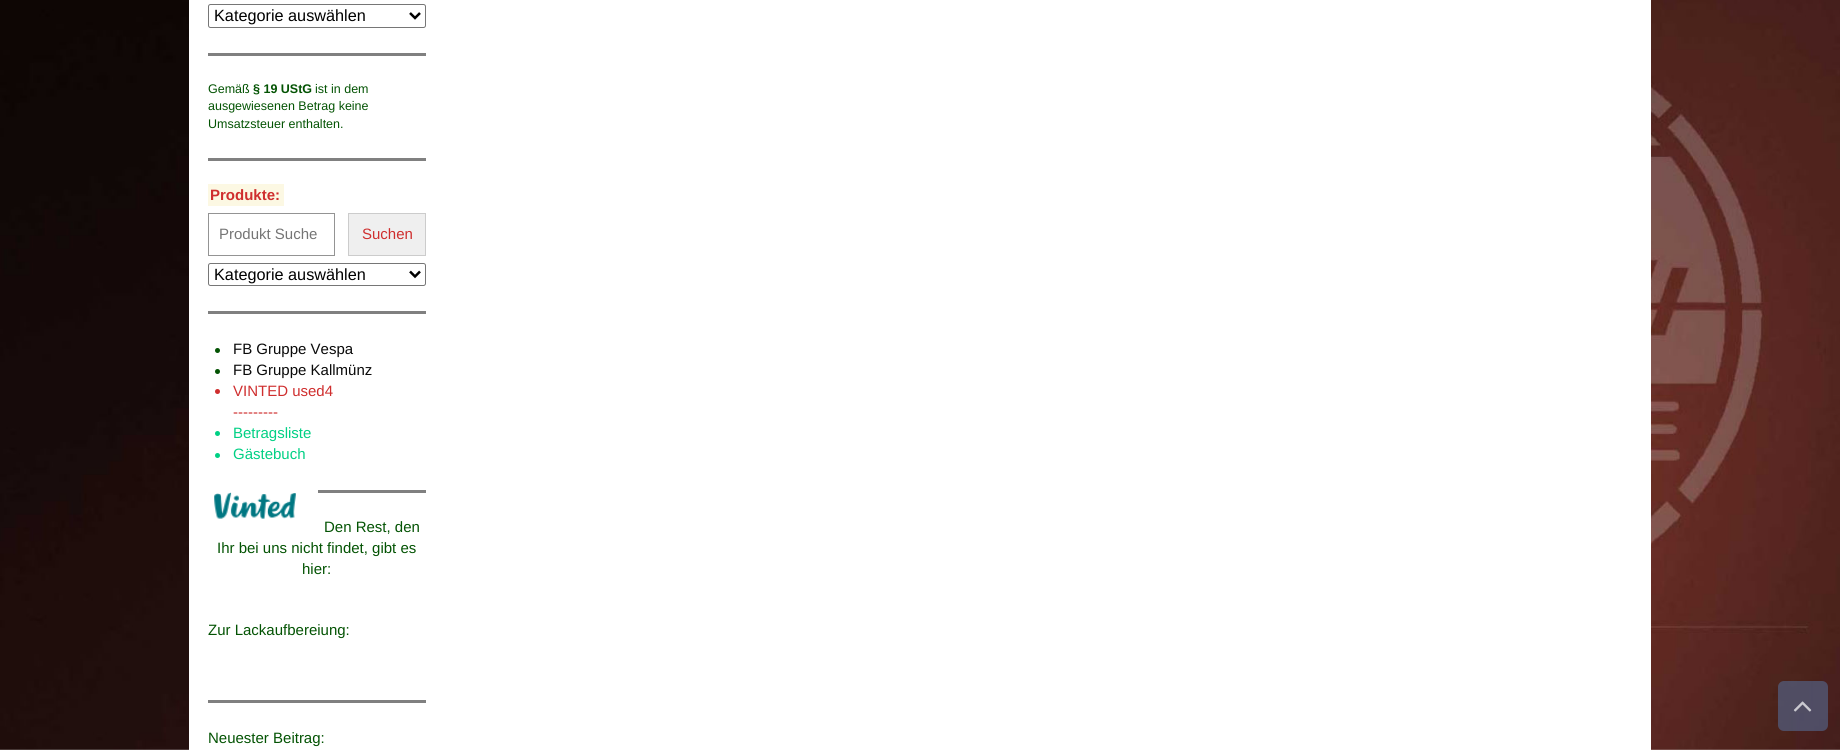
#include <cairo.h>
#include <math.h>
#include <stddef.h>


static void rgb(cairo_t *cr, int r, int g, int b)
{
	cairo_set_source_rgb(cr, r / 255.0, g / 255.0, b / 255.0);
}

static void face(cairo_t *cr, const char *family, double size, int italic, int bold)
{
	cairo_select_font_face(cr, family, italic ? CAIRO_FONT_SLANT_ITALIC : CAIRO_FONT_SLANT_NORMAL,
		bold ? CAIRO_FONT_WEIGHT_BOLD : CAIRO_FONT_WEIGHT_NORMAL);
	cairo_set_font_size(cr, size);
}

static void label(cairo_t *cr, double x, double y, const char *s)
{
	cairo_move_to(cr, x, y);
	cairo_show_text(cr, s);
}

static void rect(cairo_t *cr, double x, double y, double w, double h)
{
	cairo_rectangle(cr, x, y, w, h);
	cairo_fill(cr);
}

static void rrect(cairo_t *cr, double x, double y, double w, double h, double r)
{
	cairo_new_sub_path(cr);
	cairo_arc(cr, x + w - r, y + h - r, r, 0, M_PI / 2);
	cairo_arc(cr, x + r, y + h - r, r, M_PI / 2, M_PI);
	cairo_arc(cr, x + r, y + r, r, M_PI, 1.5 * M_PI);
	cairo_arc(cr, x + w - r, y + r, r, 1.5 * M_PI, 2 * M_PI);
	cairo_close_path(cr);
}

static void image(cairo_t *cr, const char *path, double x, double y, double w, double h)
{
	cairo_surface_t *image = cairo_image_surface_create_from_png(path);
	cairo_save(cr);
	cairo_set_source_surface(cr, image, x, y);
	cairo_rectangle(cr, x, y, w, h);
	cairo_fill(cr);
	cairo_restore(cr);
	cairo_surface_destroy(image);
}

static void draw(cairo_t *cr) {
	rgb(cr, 255, 255, 255);
	cairo_paint(cr);
	image(cr, "image0.png", 0, 0, 1840, 750);
	rgb(cr, 255, 255, 255);
	rect(cr, 189, 0, 1462, 750);
	rrect(cr, 208.5, 4.5, 217, 23, 2);
	rgb(cr, 118, 118, 118);
	cairo_set_line_width(cr, 1);
	cairo_stroke(cr);
	cairo_new_path(cr);
	cairo_move_to(cr, 410, 13);
	cairo_line_to(cr, 415, 18);
	cairo_line_to(cr, 420, 13);
	rgb(cr, 0, 0, 0);
	cairo_set_line_width(cr, 2.5);
	cairo_stroke(cr);
	face(cr, "Liberation Sans", 16.25, 0, 0);
	label(cr, 214, 21, "Kategorie auswählen");
	rgb(cr, 128, 128, 128);
	rect(cr, 208, 53, 218, 3);
	face(cr, "Liberation Sans", 12.5, 0, 0);
	rgb(cr, 3, 83, 3);
	label(cr, 208, 93, "Gemäß");
	face(cr, "Liberation Sans", 12.5, 0, 1);
	label(cr, 253, 93, "§ 19 UStG");
	face(cr, "Liberation Sans", 12.5, 0, 0);
	label(cr, 315, 93, "ist in dem");
	label(cr, 208, 110, "ausgewiesenen Betrag keine");
	label(cr, 208, 128, "Umsatzsteuer enthalten.");
	rgb(cr, 128, 128, 128);
	rect(cr, 208, 158, 218, 3);
	rgb(cr, 252, 248, 227);
	rect(cr, 208, 184, 76, 22);
	face(cr, "Liberation Sans", 15, 0, 1);
	rgb(cr, 207, 46, 46);
	label(cr, 210, 200, "Produkte:");
	cairo_rectangle(cr, 208.5, 213.5, 126, 42);
	rgb(cr, 148, 148, 148);
	cairo_set_line_width(cr, 1);
	cairo_stroke(cr);
	face(cr, "Liberation Sans", 15, 0, 0);
	rgb(cr, 117, 117, 117);
	label(cr, 219, 239, "Produkt Suche");
	rgb(cr, 239, 239, 239);
	cairo_rectangle(cr, 348.5, 213.5, 77, 42);
	cairo_fill_preserve(cr);
	rgb(cr, 204, 204, 204);
	cairo_stroke(cr);
	rgb(cr, 207, 46, 46);
	label(cr, 362, 239, "Suchen");
	rrect(cr, 208.5, 263.5, 217, 22, 2);
	rgb(cr, 118, 118, 118);
	cairo_stroke(cr);
	cairo_new_path(cr);
	cairo_move_to(cr, 410, 271.5);
	cairo_line_to(cr, 415, 276.5);
	cairo_line_to(cr, 420, 271.5);
	rgb(cr, 0, 0, 0);
	cairo_set_line_width(cr, 2.5);
	cairo_stroke(cr);
	face(cr, "Liberation Sans", 16.25, 0, 0);
	label(cr, 214, 280, "Kategorie auswählen");
	rgb(cr, 128, 128, 128);
	rect(cr, 208, 311, 218, 3);
	rgb(cr, 3, 83, 3);
	cairo_new_path(cr);
	cairo_arc(cr, 217.5, 350.5, 2.5, 0, 2 * M_PI);
	cairo_fill(cr);
	face(cr, "Liberation Sans", 15, 0, 0);
	rgb(cr, 10, 10, 10);
	label(cr, 233, 354, "FB Gruppe Vespa");
	rgb(cr, 3, 83, 3);
	cairo_new_path(cr);
	cairo_arc(cr, 217.5, 371.5, 2.5, 0, 2 * M_PI);
	cairo_fill(cr);
	rgb(cr, 10, 10, 10);
	label(cr, 233, 375, "FB Gruppe Kallmünz");
	rgb(cr, 207, 46, 46);
	cairo_new_path(cr);
	cairo_arc(cr, 217.5, 391.5, 2.5, 0, 2 * M_PI);
	cairo_fill(cr);
	label(cr, 233, 396, "VINTED used4");
	label(cr, 233, 417, "---------");
	rgb(cr, 0, 208, 132);
	cairo_new_path(cr);
	cairo_arc(cr, 217.5, 433.5, 2.5, 0, 2 * M_PI);
	cairo_fill(cr);
	label(cr, 233, 438, "Betragsliste");
	cairo_new_path(cr);
	cairo_arc(cr, 217.5, 455.5, 2.5, 0, 2 * M_PI);
	cairo_fill(cr);
	label(cr, 233, 459, "Gästebuch");
	rgb(cr, 128, 128, 128);
	rect(cr, 318, 490, 108, 3);
	image(cr, "image1.png", 214, 492, 82, 27);
	rgb(cr, 3, 83, 3);
	label(cr, 324, 532, "Den Rest, den");
	label(cr, 217, 553, "Ihr bei uns nicht findet, gibt es");
	label(cr, 302, 574, "hier:");
	label(cr, 208, 635, "Zur Lackaufbereiung:");
	rgb(cr, 128, 128, 128);
	rect(cr, 208, 700, 218, 3);
	rgb(cr, 3, 83, 3);
	label(cr, 208, 743, "Neuester Beitrag:");
	cairo_set_source_rgba(cr, 0.329, 0.376, 0.51, 0.7);
	rrect(cr, 1778, 681, 50, 50, 6);
	cairo_fill(cr);
	image(cr, "image2.png", 1793, 701, 19, 11);
}

int main(void) {
	cairo_surface_t *surface = cairo_image_surface_create(CAIRO_FORMAT_RGB24, 1840, 750);
	cairo_t *cr = cairo_create(surface);
	cairo_font_options_t *options = cairo_font_options_create();
	cairo_font_options_set_hint_metrics(options, CAIRO_HINT_METRICS_OFF);
	cairo_font_options_set_hint_style(options, CAIRO_HINT_STYLE_NONE);
	cairo_set_font_options(cr, options);
	cairo_set_miter_limit(cr, 4);
	draw(cr);
	cairo_surface_write_to_png(surface, "render.png");
	cairo_font_options_destroy(options);
	cairo_destroy(cr);
	cairo_surface_destroy(surface);
	return 0;
}
